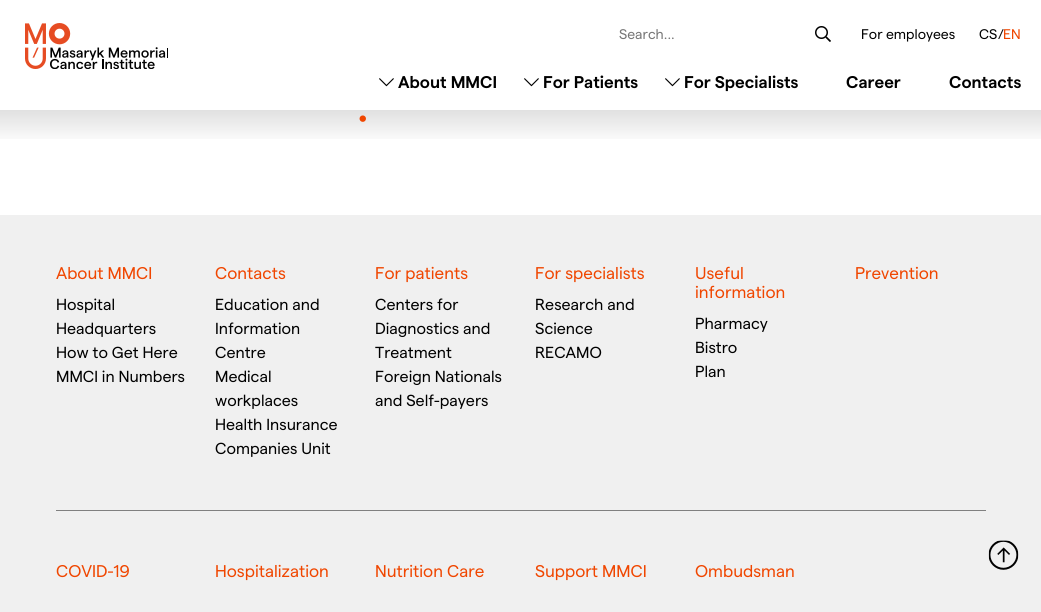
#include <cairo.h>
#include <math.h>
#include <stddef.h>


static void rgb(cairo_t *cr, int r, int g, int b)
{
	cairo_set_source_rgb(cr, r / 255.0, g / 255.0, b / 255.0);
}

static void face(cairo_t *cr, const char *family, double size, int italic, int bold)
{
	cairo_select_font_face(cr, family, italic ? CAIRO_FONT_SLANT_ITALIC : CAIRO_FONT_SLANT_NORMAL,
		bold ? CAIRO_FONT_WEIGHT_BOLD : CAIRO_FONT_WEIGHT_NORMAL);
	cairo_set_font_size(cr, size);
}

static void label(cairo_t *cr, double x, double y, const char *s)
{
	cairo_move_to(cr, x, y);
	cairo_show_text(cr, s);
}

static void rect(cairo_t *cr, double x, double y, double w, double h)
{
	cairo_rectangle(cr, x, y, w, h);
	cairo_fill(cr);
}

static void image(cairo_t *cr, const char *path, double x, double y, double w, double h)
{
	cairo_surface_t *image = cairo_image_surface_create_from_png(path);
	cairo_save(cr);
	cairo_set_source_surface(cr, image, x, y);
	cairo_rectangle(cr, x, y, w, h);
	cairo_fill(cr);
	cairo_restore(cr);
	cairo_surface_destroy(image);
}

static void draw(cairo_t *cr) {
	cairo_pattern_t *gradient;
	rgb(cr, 255, 255, 255);
	cairo_paint(cr);
	image(cr, "image0.png", 25, 23, 143, 46);
	face(cr, "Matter", 14, 0, 0);
	rgb(cr, 118, 118, 118);
	label(cr, 619, 39, "Search...");
	image(cr, "image1.png", 815, 26, 16, 16);
	rgb(cr, 0, 0, 0);
	label(cr, 861, 39, "For employees");
	label(cr, 979, 39, "CS");
	rgb(cr, 24, 21, 19);
	label(cr, 998, 39, "/");
	rgb(cr, 240, 70, 0);
	label(cr, 1003, 39, "EN");
	image(cr, "image2.png", 379, 78, 15, 9);
	face(cr, "Matter SemiBold", 17, 0, 0);
	rgb(cr, 0, 0, 0);
	label(cr, 398, 88, "About MMCI");
	image(cr, "image2.png", 524, 78, 15, 9);
	label(cr, 543, 88, "For Patients");
	image(cr, "image2.png", 665, 78, 15, 9);
	label(cr, 684, 88, "For Specialists");
	label(cr, 846, 88, "Career");
	label(cr, 949, 88, "Contacts");
	gradient = cairo_pattern_create_linear(521, 110, 521, 145);
	cairo_pattern_add_color_stop_rgba(gradient, 0, 0, 0, 0, 0.12);
	cairo_pattern_add_color_stop_rgba(gradient, 1, 0, 0, 0, 0);
	cairo_set_source(cr, gradient);
	cairo_pattern_destroy(gradient);
	rect(cr, 0, 110, 1041, 29);
	face(cr, "Matter SemiBold", 16, 0, 0);
	rgb(cr, 240, 70, 0);
	label(cr, 359, 123, "•");
	rgb(cr, 240, 240, 240);
	rect(cr, 0, 215, 1041, 397);
	face(cr, "Matter", 17, 0, 0);
	rgb(cr, 240, 70, 0);
	label(cr, 56, 279, "About MMCI");
	face(cr, "Matter", 16, 0, 0);
	rgb(cr, 0, 0, 0);
	label(cr, 56, 310, "Hospital");
	label(cr, 56, 334, "Headquarters");
	label(cr, 56, 358, "How to Get Here");
	label(cr, 56, 382, "MMCI in Numbers");
	face(cr, "Matter", 17, 0, 0);
	rgb(cr, 240, 70, 0);
	label(cr, 215, 279, "Contacts");
	face(cr, "Matter", 16, 0, 0);
	rgb(cr, 0, 0, 0);
	label(cr, 215, 310, "Education and");
	label(cr, 215, 334, "Information");
	label(cr, 215, 358, "Centre");
	label(cr, 215, 382, "Medical");
	label(cr, 215, 406, "workplaces");
	label(cr, 215, 430, "Health Insurance");
	label(cr, 215, 454, "Companies Unit");
	face(cr, "Matter", 17, 0, 0);
	rgb(cr, 240, 70, 0);
	label(cr, 375, 279, "For patients");
	face(cr, "Matter", 16, 0, 0);
	rgb(cr, 0, 0, 0);
	label(cr, 375, 310, "Centers for");
	label(cr, 375, 334, "Diagnostics and");
	label(cr, 375, 358, "Treatment");
	label(cr, 375, 382, "Foreign Nationals");
	label(cr, 375, 406, "and Self-payers");
	face(cr, "Matter", 17, 0, 0);
	rgb(cr, 240, 70, 0);
	label(cr, 535, 279, "For specialists");
	face(cr, "Matter", 16, 0, 0);
	rgb(cr, 0, 0, 0);
	label(cr, 535, 310, "Research and");
	label(cr, 535, 334, "Science");
	label(cr, 535, 358, "RECAMO");
	face(cr, "Matter", 17, 0, 0);
	rgb(cr, 240, 70, 0);
	label(cr, 695, 279, "Useful");
	label(cr, 695, 298, "information");
	face(cr, "Matter", 16, 0, 0);
	rgb(cr, 0, 0, 0);
	label(cr, 695, 329, "Pharmacy");
	label(cr, 695, 353, "Bistro");
	label(cr, 695, 377, "Plan");
	face(cr, "Matter", 17, 0, 0);
	rgb(cr, 240, 70, 0);
	label(cr, 855, 279, "Prevention");
	rgb(cr, 128, 128, 128);
	rect(cr, 56, 510, 930, 1);
	rgb(cr, 240, 70, 0);
	label(cr, 56, 577, "COVID-19");
	label(cr, 215, 577, "Hospitalization");
	label(cr, 375, 577, "Nutrition Care");
	label(cr, 535, 577, "Support MMCI");
	label(cr, 695, 577, "Ombudsman");
	image(cr, "image3.png", 988, 540, 31, 30);
}

int main(void) {
	cairo_surface_t *surface = cairo_image_surface_create(CAIRO_FORMAT_RGB24, 1041, 612);
	cairo_t *cr = cairo_create(surface);
	cairo_font_options_t *options = cairo_font_options_create();
	cairo_font_options_set_hint_metrics(options, CAIRO_HINT_METRICS_OFF);
	cairo_font_options_set_hint_style(options, CAIRO_HINT_STYLE_NONE);
	cairo_set_font_options(cr, options);
	cairo_set_miter_limit(cr, 4);
	draw(cr);
	cairo_surface_write_to_png(surface, "render.png");
	cairo_font_options_destroy(options);
	cairo_destroy(cr);
	cairo_surface_destroy(surface);
	return 0;
}
